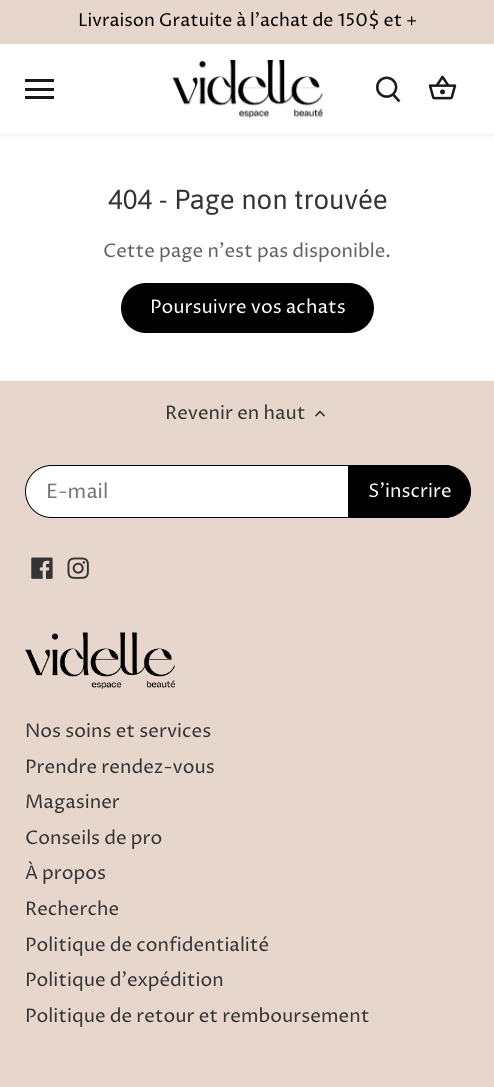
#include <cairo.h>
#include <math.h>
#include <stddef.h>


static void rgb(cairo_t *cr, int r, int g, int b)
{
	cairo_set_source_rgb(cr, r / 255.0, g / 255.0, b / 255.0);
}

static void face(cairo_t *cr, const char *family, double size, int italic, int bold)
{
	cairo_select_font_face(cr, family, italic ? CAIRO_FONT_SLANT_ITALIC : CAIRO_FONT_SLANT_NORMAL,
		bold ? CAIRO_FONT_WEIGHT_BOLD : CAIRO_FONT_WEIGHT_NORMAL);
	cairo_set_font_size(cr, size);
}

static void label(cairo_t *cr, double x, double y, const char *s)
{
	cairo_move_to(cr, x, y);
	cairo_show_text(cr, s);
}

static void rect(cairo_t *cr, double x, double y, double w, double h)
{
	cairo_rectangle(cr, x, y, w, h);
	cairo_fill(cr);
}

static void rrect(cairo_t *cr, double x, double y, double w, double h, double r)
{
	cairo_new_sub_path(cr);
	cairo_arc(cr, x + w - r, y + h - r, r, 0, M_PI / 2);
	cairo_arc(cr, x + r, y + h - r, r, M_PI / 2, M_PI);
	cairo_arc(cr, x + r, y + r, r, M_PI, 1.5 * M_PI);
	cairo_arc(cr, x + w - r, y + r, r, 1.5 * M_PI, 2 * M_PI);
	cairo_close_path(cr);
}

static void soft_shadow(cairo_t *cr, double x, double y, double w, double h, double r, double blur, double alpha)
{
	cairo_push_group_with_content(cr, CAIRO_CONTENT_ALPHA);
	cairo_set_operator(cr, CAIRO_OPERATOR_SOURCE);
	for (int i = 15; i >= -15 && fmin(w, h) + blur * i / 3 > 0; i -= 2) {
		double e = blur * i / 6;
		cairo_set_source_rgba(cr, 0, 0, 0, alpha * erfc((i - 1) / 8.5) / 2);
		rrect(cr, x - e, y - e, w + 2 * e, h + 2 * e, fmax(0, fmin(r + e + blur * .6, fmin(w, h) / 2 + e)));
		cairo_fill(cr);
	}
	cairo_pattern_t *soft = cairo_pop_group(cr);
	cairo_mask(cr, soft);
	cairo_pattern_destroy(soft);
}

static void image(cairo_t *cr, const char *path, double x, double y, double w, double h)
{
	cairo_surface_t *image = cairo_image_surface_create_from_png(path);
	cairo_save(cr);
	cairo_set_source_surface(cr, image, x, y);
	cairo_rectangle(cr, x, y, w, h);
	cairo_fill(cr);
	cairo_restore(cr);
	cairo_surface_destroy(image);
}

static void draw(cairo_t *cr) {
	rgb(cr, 230, 214, 203);
	cairo_paint(cr);
	rgb(cr, 255, 255, 255);
	rect(cr, 0, 134, 494, 246);
	rgb(cr, 0, 0, 0);
	soft_shadow(cr, -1, 43, 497, 92, 0, 2, 0.08);
	rgb(cr, 230, 214, 203);
	rect(cr, 0, 41, 494, 3);
	face(cr, "Proza Libre", 17.8, 0, 0);
	rgb(cr, 0, 0, 0);
	label(cr, 78, 26, "Livraison Gratuite à l'achat de 150$ et +");
	rgb(cr, 255, 255, 255);
	rect(cr, 0, 44, 494, 90);
	rgb(cr, 25, 24, 23);
	rect(cr, 25, 79, 29, 3);
	rect(cr, 25, 88, 29, 3);
	rect(cr, 25, 96, 29, 3);
	image(cr, "image0.png", 172, 60, 151, 58);
	image(cr, "image1.png", 375, 76, 26, 27);
	image(cr, "image2.png", 428, 75, 29, 25);
	face(cr, "Asap", 27.5, 0, 0);
	rgb(cr, 52, 52, 52);
	label(cr, 108, 209, "404 - Page non trouvée");
	face(cr, "Proza Libre", 18.75, 0, 0);
	rgb(cr, 97, 97, 97);
	label(cr, 103, 257, "Cette page n'est pas disponible.");
	rgb(cr, 0, 0, 0);
	rrect(cr, 122.5, 284.5, 250, 47, 23.5);
	cairo_fill_preserve(cr);
	cairo_set_line_width(cr, 3);
	cairo_stroke(cr);
	rgb(cr, 255, 255, 255);
	label(cr, 150, 313, "Poursuivre vos achats");
	rgb(cr, 245, 245, 245);
	rect(cr, 0, 380, 494, 1);
	rgb(cr, 52, 52, 52);
	label(cr, 165, 419, "Revenir en haut");
	image(cr, "image3.png", 315, 410, 10, 7);
	rgb(cr, 255, 255, 255);
	rrect(cr, 25.5, 465.5, 444, 52, 26);
	cairo_fill_preserve(cr);
	rgb(cr, 0, 0, 0);
	cairo_set_line_width(cr, 1);
	cairo_stroke(cr);
	face(cr, "Proza Libre", 20, 0, 0);
	rgb(cr, 117, 117, 117);
	label(cr, 46, 498, "E-mail");
	rgb(cr, 0, 0, 0);
	cairo_new_path(cr);
	cairo_move_to(cr, 348.5, 465.5);
	cairo_line_to(cr, 444.5, 465.5);
	cairo_curve_to(cr, 459, 465.5, 470.5, 477, 470.5, 491.5);
	cairo_curve_to(cr, 470.5, 506, 459, 517.5, 444.5, 517.5);
	cairo_line_to(cr, 348.5, 517.5);
	cairo_close_path(cr);
	cairo_fill_preserve(cr);
	cairo_stroke(cr);
	face(cr, "Proza Libre", 18.75, 0, 0);
	rgb(cr, 255, 255, 255);
	label(cr, 368, 497, "S'inscrire");
	image(cr, "image4.png", 31, 557, 22, 22);
	image(cr, "image5.png", 67, 557, 22, 22);
	image(cr, "image6.png", 25, 632, 150, 57);
	rgb(cr, 52, 52, 52);
	label(cr, 25, 737, "Nos soins et services");
	label(cr, 25, 773, "Prendre rendez-vous");
	label(cr, 25, 808, "Magasiner");
	label(cr, 25, 844, "Conseils de pro");
	label(cr, 25, 879, "À propos");
	label(cr, 25, 915, "Recherche");
	label(cr, 25, 951, "Politique de confidentialité");
	label(cr, 25, 986, "Politique d'expédition");
	label(cr, 25, 1022, "Politique de retour et remboursement");
}

int main(void) {
	cairo_surface_t *surface = cairo_image_surface_create(CAIRO_FORMAT_RGB24, 494, 1087);
	cairo_t *cr = cairo_create(surface);
	cairo_font_options_t *options = cairo_font_options_create();
	cairo_font_options_set_hint_metrics(options, CAIRO_HINT_METRICS_OFF);
	cairo_font_options_set_hint_style(options, CAIRO_HINT_STYLE_NONE);
	cairo_set_font_options(cr, options);
	cairo_set_miter_limit(cr, 4);
	draw(cr);
	cairo_surface_write_to_png(surface, "render.png");
	cairo_font_options_destroy(options);
	cairo_destroy(cr);
	cairo_surface_destroy(surface);
	return 0;
}
